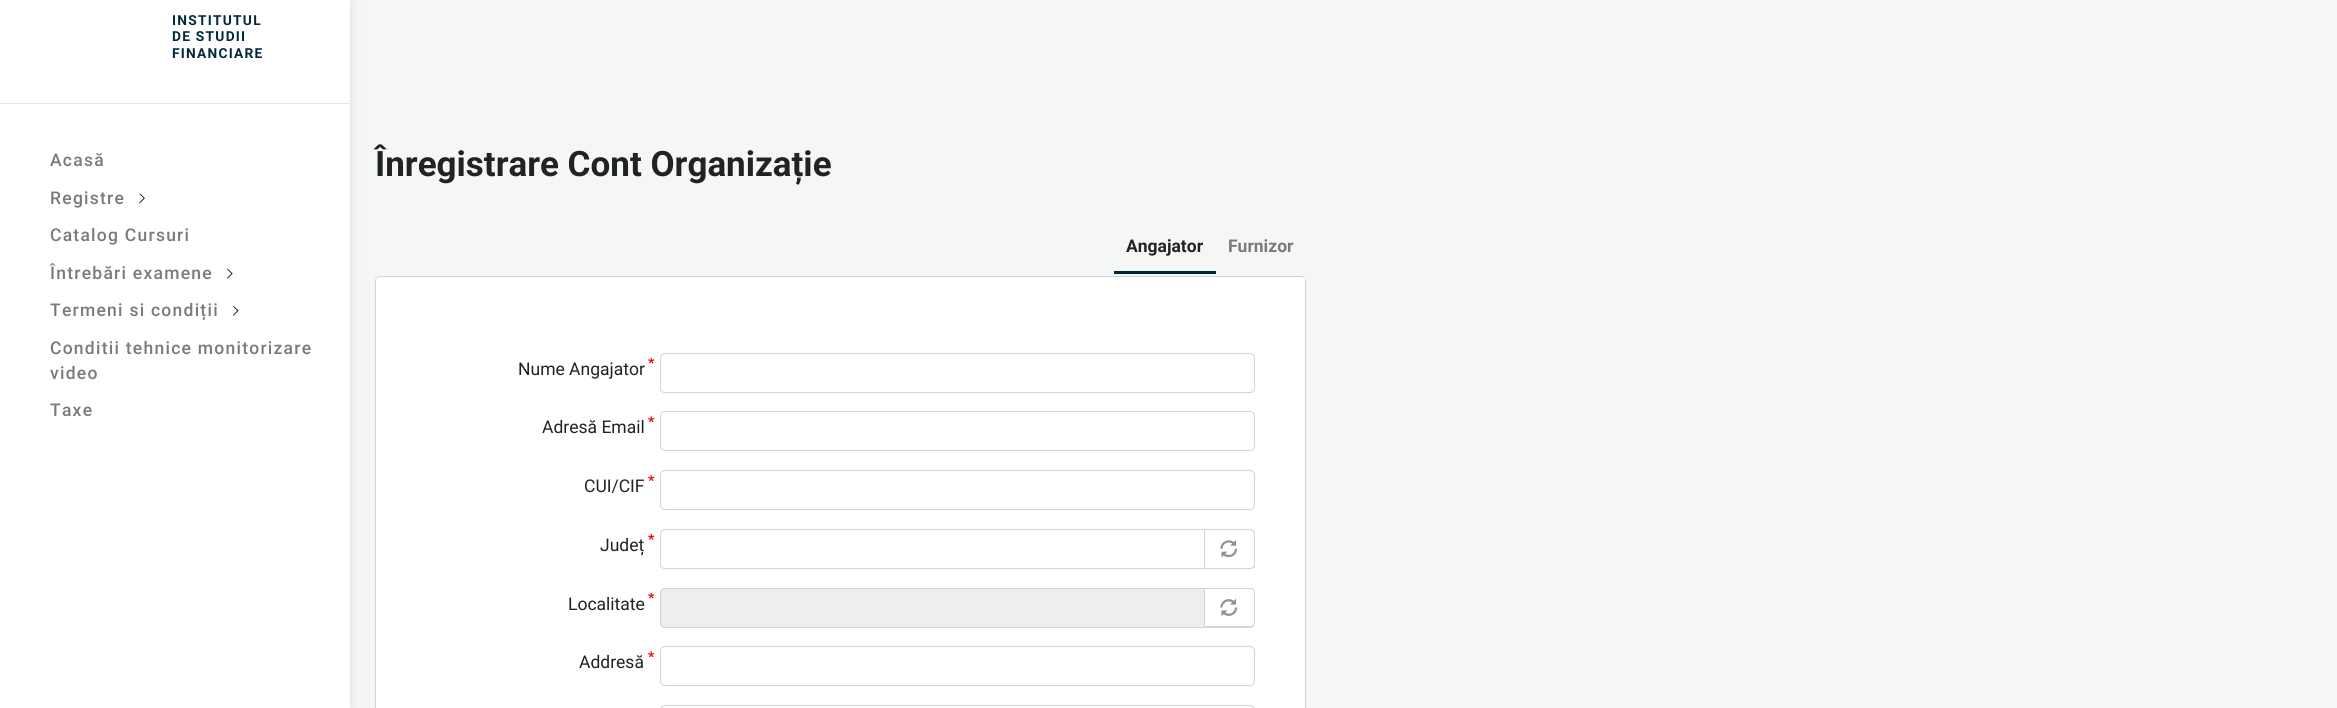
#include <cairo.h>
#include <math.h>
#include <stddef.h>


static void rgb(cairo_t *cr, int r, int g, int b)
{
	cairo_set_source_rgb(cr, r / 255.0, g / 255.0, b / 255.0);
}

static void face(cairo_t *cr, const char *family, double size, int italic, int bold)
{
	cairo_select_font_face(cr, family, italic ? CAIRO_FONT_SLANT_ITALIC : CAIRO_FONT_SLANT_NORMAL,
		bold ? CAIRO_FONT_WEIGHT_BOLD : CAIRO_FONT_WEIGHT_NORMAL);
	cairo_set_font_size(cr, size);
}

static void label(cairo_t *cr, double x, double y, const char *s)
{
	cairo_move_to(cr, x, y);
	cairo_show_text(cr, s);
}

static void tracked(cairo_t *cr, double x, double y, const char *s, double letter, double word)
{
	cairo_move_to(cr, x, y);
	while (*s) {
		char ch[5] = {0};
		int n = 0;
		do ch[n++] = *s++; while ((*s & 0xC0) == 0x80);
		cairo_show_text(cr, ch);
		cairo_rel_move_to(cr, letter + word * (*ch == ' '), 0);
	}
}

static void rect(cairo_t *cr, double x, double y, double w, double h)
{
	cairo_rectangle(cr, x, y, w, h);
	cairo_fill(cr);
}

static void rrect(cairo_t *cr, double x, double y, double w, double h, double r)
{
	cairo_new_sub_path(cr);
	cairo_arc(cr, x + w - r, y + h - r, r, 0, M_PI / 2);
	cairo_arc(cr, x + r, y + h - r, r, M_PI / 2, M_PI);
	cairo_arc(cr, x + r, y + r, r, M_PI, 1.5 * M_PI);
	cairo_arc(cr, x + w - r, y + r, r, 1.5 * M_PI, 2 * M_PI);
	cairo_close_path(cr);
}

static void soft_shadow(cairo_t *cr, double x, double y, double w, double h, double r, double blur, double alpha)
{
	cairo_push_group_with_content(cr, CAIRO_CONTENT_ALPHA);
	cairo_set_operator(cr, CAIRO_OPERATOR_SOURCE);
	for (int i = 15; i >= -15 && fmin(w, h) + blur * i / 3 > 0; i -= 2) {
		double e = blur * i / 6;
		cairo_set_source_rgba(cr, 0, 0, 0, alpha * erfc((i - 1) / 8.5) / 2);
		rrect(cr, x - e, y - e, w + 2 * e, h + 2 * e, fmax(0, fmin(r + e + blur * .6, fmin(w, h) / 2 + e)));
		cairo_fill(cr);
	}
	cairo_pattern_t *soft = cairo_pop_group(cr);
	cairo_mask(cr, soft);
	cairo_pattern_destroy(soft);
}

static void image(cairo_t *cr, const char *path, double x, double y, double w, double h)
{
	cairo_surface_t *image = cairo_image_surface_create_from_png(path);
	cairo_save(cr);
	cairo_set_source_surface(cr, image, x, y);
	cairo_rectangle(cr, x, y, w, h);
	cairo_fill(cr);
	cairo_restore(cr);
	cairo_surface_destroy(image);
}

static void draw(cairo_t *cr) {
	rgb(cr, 245, 247, 247);
	cairo_paint(cr);
	rgb(cr, 0, 0, 0);
	soft_shadow(cr, 0, 0, 350, 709, 0, 6, 0.1);
	rgb(cr, 255, 255, 255);
	rect(cr, 0, 104, 350, 604);
	rect(cr, 0, 0, 350, 103);
	rgb(cr, 228, 232, 236);
	rect(cr, 0, 103, 350, 1);
	face(cr, "Roboto", 13.75, 0, 1);
	rgb(cr, 0, 41, 61);
	tracked(cr, 172, 25, "INSTITUTUL", 1.25, 0);
	tracked(cr, 172, 41, "DE STUDII", 1.25, 0);
	tracked(cr, 172, 58, "FINANCIARE", 1.25, 0);
	face(cr, "Roboto Medium", 17.5, 0, 0);
	rgb(cr, 121, 122, 124);
	tracked(cr, 50, 166, "Acasă", 1.25, 0);
	tracked(cr, 50, 204, "Registre", 1.25, 0);
	image(cr, "image0.png", 139, 193, 6, 11);
	tracked(cr, 50, 241, "Catalog Cursuri", 1.25, 0);
	tracked(cr, 50, 279, "Întrebări examene", 1.25, 0);
	image(cr, "image1.png", 227, 268, 6, 11);
	tracked(cr, 50, 316, "Termeni si condiții", 1.25, 0);
	image(cr, "image2.png", 232, 306, 7, 10);
	tracked(cr, 50, 354, "Conditii tehnice monitorizare", 1.25, 0);
	tracked(cr, 50, 379, "video", 1.25, 0);
	tracked(cr, 50, 416, "Taxe", 1.25, 0);
	face(cr, "Roboto", 35, 0, 1);
	rgb(cr, 32, 34, 36);
	label(cr, 375, 176, "Înregistrare Cont Organizație");
	rgb(cr, 0, 41, 61);
	rect(cr, 1114, 271, 102, 3);
	face(cr, "Roboto", 17.5, 0, 1);
	rgb(cr, 32, 34, 36);
	label(cr, 1126, 252, "Angajator");
	rgb(cr, 121, 122, 124);
	label(cr, 1228, 252, "Furnizor");
	rgb(cr, 255, 255, 255);
	cairo_new_path(cr);
	cairo_move_to(cr, 380, 276);
	cairo_line_to(cr, 1301, 276);
	cairo_curve_to(cr, 1304, 276, 1306, 278, 1306, 281);
	cairo_line_to(cr, 1306, 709);
	cairo_line_to(cr, 375, 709);
	cairo_line_to(cr, 375, 281);
	cairo_curve_to(cr, 375, 278, 377, 276, 380, 276);
	cairo_close_path(cr);
	cairo_fill(cr);
	rrect(cr, 375.5, 276.5, 930, 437, 4.5);
	rgb(cr, 208, 212, 216);
	cairo_set_line_width(cr, 1);
	cairo_stroke(cr);
	rgb(cr, 255, 255, 255);
	rect(cr, 1303, 278, 2, 2);
	image(cr, "image3.png", 648, 358, 7, 6);
	face(cr, "Roboto", 17.5, 0, 0);
	rgb(cr, 32, 34, 36);
	label(cr, 518, 375, "Nume Angajator");
	rrect(cr, 660.5, 353.5, 594, 39, 4.5);
	rgb(cr, 208, 212, 216);
	cairo_stroke(cr);
	rgb(cr, 32, 34, 36);
	label(cr, 542, 433, "Adresă Email");
	image(cr, "image4.png", 648, 416, 7, 7);
	rrect(cr, 660.5, 411.5, 594, 39, 4.5);
	rgb(cr, 208, 212, 216);
	cairo_stroke(cr);
	image(cr, "image5.png", 648, 475, 7, 6);
	rgb(cr, 32, 34, 36);
	label(cr, 584, 492, "CUI/CIF");
	rrect(cr, 660.5, 470.5, 594, 39, 4.5);
	rgb(cr, 208, 212, 216);
	cairo_stroke(cr);
	rgb(cr, 32, 34, 36);
	label(cr, 600, 551, "Județ");
	image(cr, "image6.png", 648, 534, 7, 6);
	cairo_new_path(cr);
	cairo_move_to(cr, 665, 529.5);
	cairo_line_to(cr, 1204.5, 529.5);
	cairo_line_to(cr, 1204.5, 568.5);
	cairo_line_to(cr, 665, 568.5);
	cairo_curve_to(cr, 662.5, 568.5, 660.5, 566.5, 660.5, 564);
	cairo_line_to(cr, 660.5, 534);
	cairo_curve_to(cr, 660.5, 531.5, 662.5, 529.5, 665, 529.5);
	cairo_close_path(cr);
	rgb(cr, 208, 212, 216);
	cairo_stroke(cr);
	cairo_set_fill_rule(cr, CAIRO_FILL_RULE_EVEN_ODD);
	cairo_new_path(cr);
	cairo_move_to(cr, 1205, 529);
	cairo_line_to(cr, 1250, 529);
	cairo_curve_to(cr, 1253, 529, 1255, 531, 1255, 534);
	cairo_line_to(cr, 1255, 564);
	cairo_curve_to(cr, 1255, 567, 1253, 569, 1250, 569);
	cairo_line_to(cr, 1205, 569);
	cairo_close_path(cr);
	cairo_move_to(cr, 1205, 530);
	cairo_line_to(cr, 1250, 530);
	cairo_curve_to(cr, 1252, 530, 1254, 532, 1254, 534);
	cairo_line_to(cr, 1254, 564);
	cairo_curve_to(cr, 1254, 566, 1252, 568, 1250, 568);
	cairo_line_to(cr, 1205, 568);
	cairo_close_path(cr);
	cairo_fill(cr);
	image(cr, "image7.png", 1220, 540, 18, 18);
	rgb(cr, 32, 34, 36);
	label(cr, 568, 610, "Localitate");
	image(cr, "image3.png", 648, 593, 7, 6);
	rgb(cr, 238, 238, 238);
	cairo_new_path(cr);
	cairo_move_to(cr, 665, 588.5);
	cairo_line_to(cr, 1204.5, 588.5);
	cairo_line_to(cr, 1204.5, 627.5);
	cairo_line_to(cr, 665, 627.5);
	cairo_curve_to(cr, 662.5, 627.5, 660.5, 625.5, 660.5, 623);
	cairo_line_to(cr, 660.5, 593);
	cairo_curve_to(cr, 660.5, 590.5, 662.5, 588.5, 665, 588.5);
	cairo_close_path(cr);
	cairo_fill_preserve(cr);
	rgb(cr, 208, 212, 216);
	cairo_stroke(cr);
	cairo_new_path(cr);
	cairo_move_to(cr, 1205, 588);
	cairo_line_to(cr, 1250, 588);
	cairo_curve_to(cr, 1253, 588, 1255, 590, 1255, 592);
	cairo_line_to(cr, 1255, 622);
	cairo_curve_to(cr, 1255, 625, 1253, 628, 1250, 628);
	cairo_line_to(cr, 1205, 628);
	cairo_close_path(cr);
	cairo_move_to(cr, 1205, 589);
	cairo_line_to(cr, 1250, 589);
	cairo_curve_to(cr, 1252, 589, 1254, 590, 1254, 592);
	cairo_line_to(cr, 1254, 622);
	cairo_curve_to(cr, 1254, 625, 1252, 626, 1250, 626);
	cairo_line_to(cr, 1205, 626);
	cairo_close_path(cr);
	cairo_fill(cr);
	image(cr, "image8.png", 1220, 598, 18, 19);
	rgb(cr, 32, 34, 36);
	label(cr, 579, 668, "Addresă");
	image(cr, "image4.png", 648, 651, 7, 7);
	rrect(cr, 660.5, 646.5, 594, 39, 4.5);
	rgb(cr, 208, 212, 216);
	cairo_stroke(cr);
	rrect(cr, 660.5, 705.5, 594, 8, 4.5);
	cairo_stroke(cr);
}

int main(void) {
	cairo_surface_t *surface = cairo_image_surface_create(CAIRO_FORMAT_RGB24, 2337, 708);
	cairo_t *cr = cairo_create(surface);
	cairo_font_options_t *options = cairo_font_options_create();
	cairo_font_options_set_hint_metrics(options, CAIRO_HINT_METRICS_OFF);
	cairo_font_options_set_hint_style(options, CAIRO_HINT_STYLE_NONE);
	cairo_set_font_options(cr, options);
	cairo_set_miter_limit(cr, 4);
	draw(cr);
	cairo_surface_write_to_png(surface, "render.png");
	cairo_font_options_destroy(options);
	cairo_destroy(cr);
	cairo_surface_destroy(surface);
	return 0;
}
